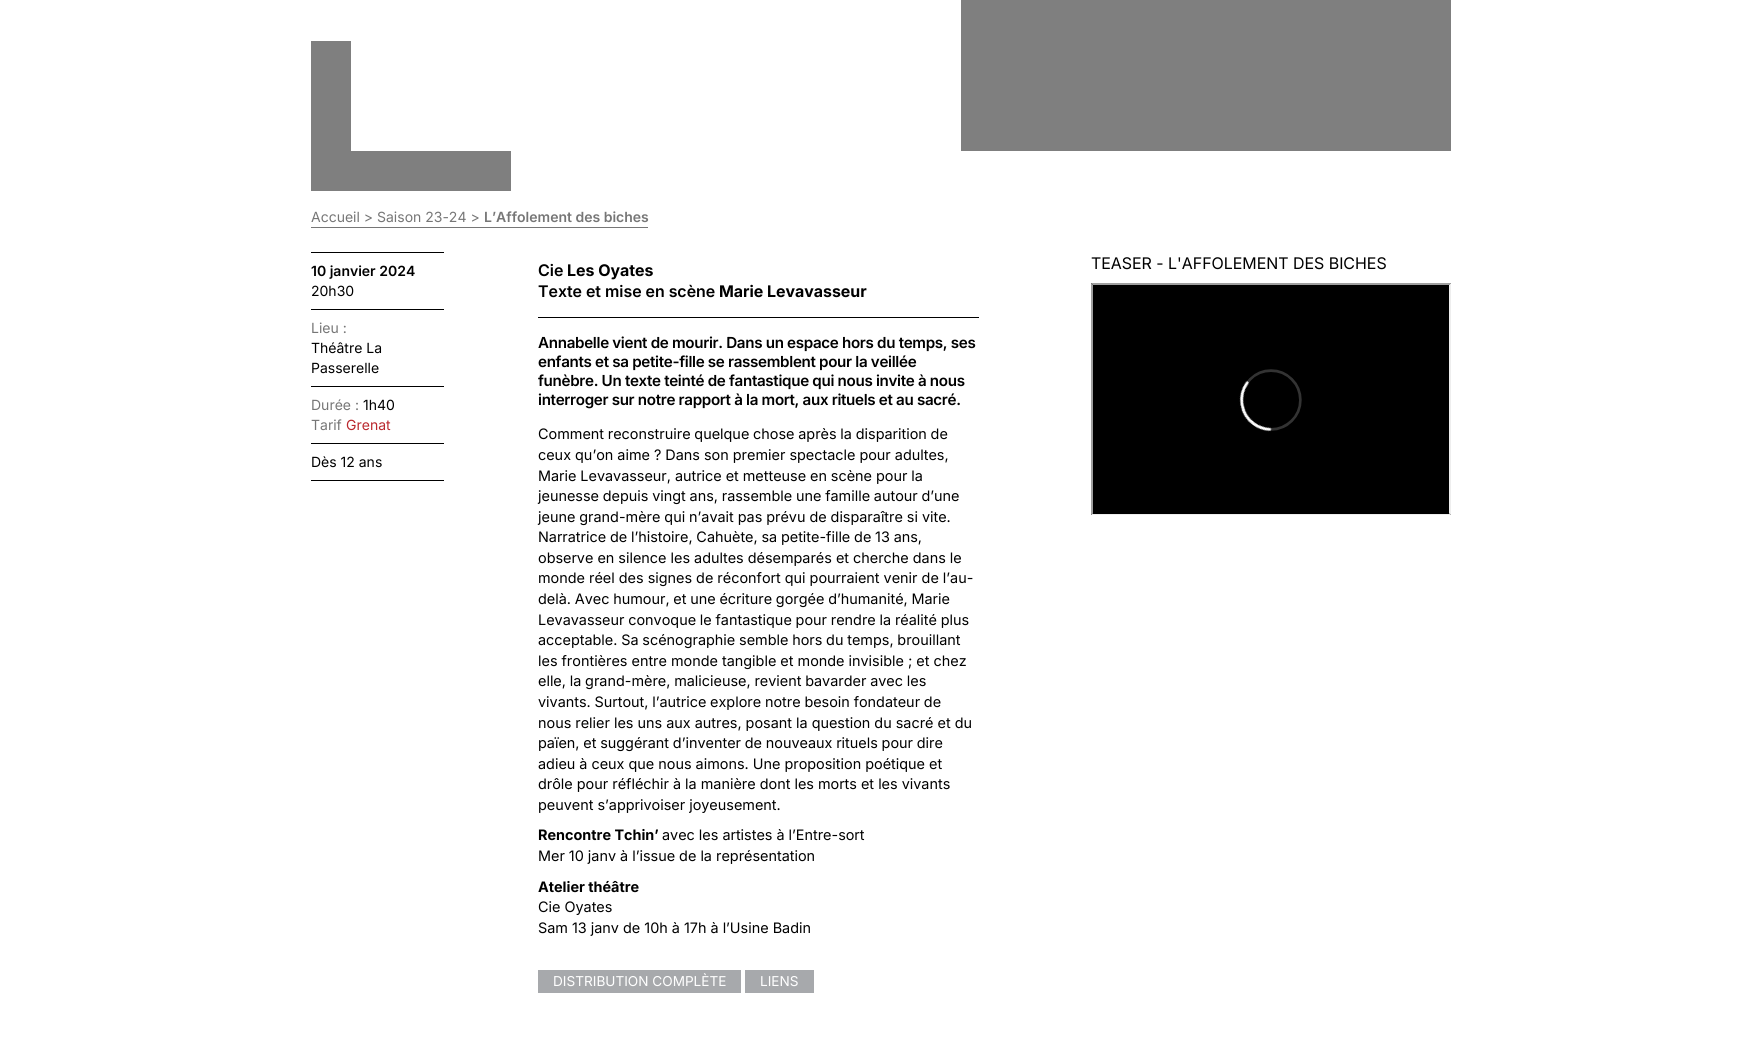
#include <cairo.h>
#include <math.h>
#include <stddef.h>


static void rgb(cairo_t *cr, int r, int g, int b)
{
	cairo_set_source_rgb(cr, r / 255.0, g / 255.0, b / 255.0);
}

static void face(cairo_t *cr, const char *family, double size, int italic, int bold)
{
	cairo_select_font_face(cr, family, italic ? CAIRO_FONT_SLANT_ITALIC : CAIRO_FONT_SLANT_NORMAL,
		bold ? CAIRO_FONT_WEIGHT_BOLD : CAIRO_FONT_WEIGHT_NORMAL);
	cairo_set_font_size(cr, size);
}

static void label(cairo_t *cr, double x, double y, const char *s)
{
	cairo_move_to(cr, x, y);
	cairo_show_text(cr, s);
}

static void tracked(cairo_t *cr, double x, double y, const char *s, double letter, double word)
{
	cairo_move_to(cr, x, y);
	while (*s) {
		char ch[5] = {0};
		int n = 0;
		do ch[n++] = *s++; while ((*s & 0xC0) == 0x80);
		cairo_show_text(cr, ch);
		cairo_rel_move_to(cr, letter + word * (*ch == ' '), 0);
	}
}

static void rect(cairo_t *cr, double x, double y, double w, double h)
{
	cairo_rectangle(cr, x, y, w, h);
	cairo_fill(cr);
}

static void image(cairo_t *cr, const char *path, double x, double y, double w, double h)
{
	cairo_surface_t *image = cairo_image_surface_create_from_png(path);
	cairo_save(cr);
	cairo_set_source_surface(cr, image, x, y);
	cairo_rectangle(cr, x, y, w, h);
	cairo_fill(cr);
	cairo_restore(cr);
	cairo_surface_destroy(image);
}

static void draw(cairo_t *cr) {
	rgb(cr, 255, 255, 255);
	cairo_paint(cr);
	rgb(cr, 127, 127, 127);
	rect(cr, 311, 41, 40, 110);
	rect(cr, 311, 151, 200, 40);
	rect(cr, 961, 0, 490, 151);
	rgb(cr, 118, 118, 118);
	rect(cr, 311, 227, 337, 1);
	face(cr, "Inter", 14, 0, 0);
	label(cr, 311, 222, "Accueil > Saison 23-24 >");
	face(cr, "Inter SemiBold", 14, 0, 0);
	label(cr, 484, 222, "L’Affolement des biches");
	rgb(cr, 0, 0, 0);
	rect(cr, 311, 252, 133, 1);
	label(cr, 311, 276, "10 janvier 2024");
	face(cr, "Inter", 14, 0, 0);
	label(cr, 311, 296, "20h30");
	rect(cr, 311, 309, 133, 1);
	rect(cr, 311, 386, 133, 1);
	rgb(cr, 118, 118, 118);
	label(cr, 311, 333, "Lieu :");
	rgb(cr, 0, 0, 0);
	label(cr, 311, 353, "Théâtre La");
	label(cr, 311, 373, "Passerelle");
	rect(cr, 311, 443, 133, 1);
	rgb(cr, 118, 118, 118);
	label(cr, 311, 410, "Durée :");
	rgb(cr, 0, 0, 0);
	label(cr, 363, 410, "1h40");
	rgb(cr, 118, 118, 118);
	label(cr, 311, 430, "Tarif");
	rgb(cr, 186, 40, 46);
	label(cr, 346, 430, "Grenat");
	rgb(cr, 0, 0, 0);
	rect(cr, 311, 480, 133, 1);
	label(cr, 311, 467, "Dès 12 ans");
	face(cr, "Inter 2 SemiBold", 16, 0, 0);
	label(cr, 538, 276, "Cie");
	face(cr, "Inter", 16, 0, 1);
	label(cr, 567, 276, "Les Oyates");
	face(cr, "Inter 2 SemiBold", 16, 0, 0);
	label(cr, 538, 297, "Texte et mise en scène");
	face(cr, "Inter", 16, 0, 1);
	label(cr, 719, 297, "Marie Levavasseur");
	rect(cr, 538, 317, 441, 1);
	face(cr, "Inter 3 SemiBold", 15.2, 0, 0);
	tracked(cr, 538, 348, "Annabelle vient de mourir. Dans un espace hors du temps, ses", -0.3, 0);
	tracked(cr, 538, 367, "enfants et sa petite-fille se rassemblent pour la veillée", -0.3, 0);
	tracked(cr, 538, 386, "funèbre. Un texte teinté de fantastique qui nous invite à nous", -0.3, 0);
	tracked(cr, 538, 405, "interroger sur notre rapport à la mort, aux rituels et au sacré.", -0.3, 0);
	face(cr, "Inter", 14.4, 0, 0);
	tracked(cr, 538, 439, "Comment reconstruire quelque chose après la disparition de", 0, -0.25);
	label(cr, 538, 460, "ceux qu’on aime ? Dans son premier spectacle pour adultes,");
	tracked(cr, 538, 481, "Marie Levavasseur, autrice et metteuse en scène pour la", 0, -0.1);
	tracked(cr, 538, 501, "jeunesse depuis vingt ans, rassemble une famille autour d’une", 0, -0.25);
	tracked(cr, 538, 522, "jeune grand-mère qui n’avait pas prévu de disparaître si vite.", 0, -0.1);
	tracked(cr, 538, 542, "Narratrice de l’histoire, Cahuète, sa petite-fille de 13 ans,", 0, -0.25);
	label(cr, 538, 563, "observe en silence les adultes désemparés et cherche dans le");
	label(cr, 538, 583, "monde réel des signes de réconfort qui pourraient venir de l’au-");
	tracked(cr, 538, 604, "delà. Avec humour, et une écriture gorgée d’humanité, Marie", 0, -0.25);
	tracked(cr, 538, 625, "Levavasseur convoque le fantastique pour rendre la réalité plus", 0, -0.25);
	tracked(cr, 538, 645, "acceptable. Sa scénographie semble hors du temps, brouillant", 0, -0.25);
	label(cr, 538, 666, "les frontières entre monde tangible et monde invisible ; et chez");
	tracked(cr, 538, 686, "elle, la grand-mère, malicieuse, revient bavarder avec les", 0, -0.25);
	tracked(cr, 538, 707, "vivants. Surtout, l’autrice explore notre besoin fondateur de", 0, -0.25);
	label(cr, 538, 728, "nous relier les uns aux autres, posant la question du sacré et du");
	tracked(cr, 538, 748, "païen, et suggérant d’inventer de nouveaux rituels pour dire", 0, -0.25);
	label(cr, 538, 769, "adieu à ceux que nous aimons. Une proposition poétique et");
	label(cr, 538, 789, "drôle pour réfléchir à la manière dont les morts et les vivants");
	label(cr, 538, 810, "peuvent s’apprivoiser joyeusement.");
	face(cr, "Inter 2", 14.4, 0, 1);
	label(cr, 538, 840, "Rencontre Tchin’");
	face(cr, "Inter", 14.4, 0, 0);
	label(cr, 662, 840, "avec les artistes à l’Entre-sort");
	label(cr, 538, 861, "Mer 10 janv à l’issue de la représentation");
	face(cr, "Inter 2", 14.4, 0, 1);
	label(cr, 538, 892, "Atelier théâtre");
	face(cr, "Inter", 14.4, 0, 0);
	label(cr, 538, 912, "Cie Oyates");
	label(cr, 538, 933, "Sam 13 janv de 10h à 17h à l’Usine Badin");
	rgb(cr, 167, 169, 172);
	rect(cr, 538, 970, 203, 23);
	face(cr, "Inter", 13.6, 0, 0);
	rgb(cr, 255, 255, 255);
	label(cr, 553, 986, "DISTRIBUTION COMPLÈTE");
	rgb(cr, 167, 169, 172);
	rect(cr, 745, 970, 69, 23);
	rgb(cr, 255, 255, 255);
	label(cr, 760, 986, "LIENS");
	face(cr, "Inter 2", 16, 0, 0);
	rgb(cr, 0, 0, 0);
	label(cr, 1091, 269, "TEASER - L'AFFOLEMENT DES BICHES");
	rect(cr, 1091, 283, 360, 232);
	rgb(cr, 159, 159, 159);
	cairo_new_path(cr);
	cairo_move_to(cr, 1091, 283);
	cairo_line_to(cr, 1451, 283);
	cairo_line_to(cr, 1449, 285);
	cairo_line_to(cr, 1093, 285);
	cairo_close_path(cr);
	cairo_fill(cr);
	rgb(cr, 238, 238, 238);
	cairo_new_path(cr);
	cairo_move_to(cr, 1451, 283);
	cairo_line_to(cr, 1451, 515);
	cairo_line_to(cr, 1449, 513);
	cairo_line_to(cr, 1449, 285);
	cairo_close_path(cr);
	cairo_fill(cr);
	cairo_new_path(cr);
	cairo_move_to(cr, 1451, 515);
	cairo_line_to(cr, 1091, 515);
	cairo_line_to(cr, 1093, 513);
	cairo_line_to(cr, 1449, 513);
	cairo_close_path(cr);
	cairo_fill(cr);
	rgb(cr, 159, 159, 159);
	cairo_new_path(cr);
	cairo_move_to(cr, 1091, 515);
	cairo_line_to(cr, 1091, 283);
	cairo_line_to(cr, 1093, 285);
	cairo_line_to(cr, 1093, 513);
	cairo_close_path(cr);
	cairo_fill(cr);
	image(cr, "image0.png", 1093, 369, 356, 145);
}

int main(void) {
	cairo_surface_t *surface = cairo_image_surface_create(CAIRO_FORMAT_RGB24, 1762, 1043);
	cairo_t *cr = cairo_create(surface);
	cairo_font_options_t *options = cairo_font_options_create();
	cairo_font_options_set_hint_metrics(options, CAIRO_HINT_METRICS_OFF);
	cairo_font_options_set_hint_style(options, CAIRO_HINT_STYLE_NONE);
	cairo_set_font_options(cr, options);
	cairo_set_miter_limit(cr, 4);
	draw(cr);
	cairo_surface_write_to_png(surface, "render.png");
	cairo_font_options_destroy(options);
	cairo_destroy(cr);
	cairo_surface_destroy(surface);
	return 0;
}
